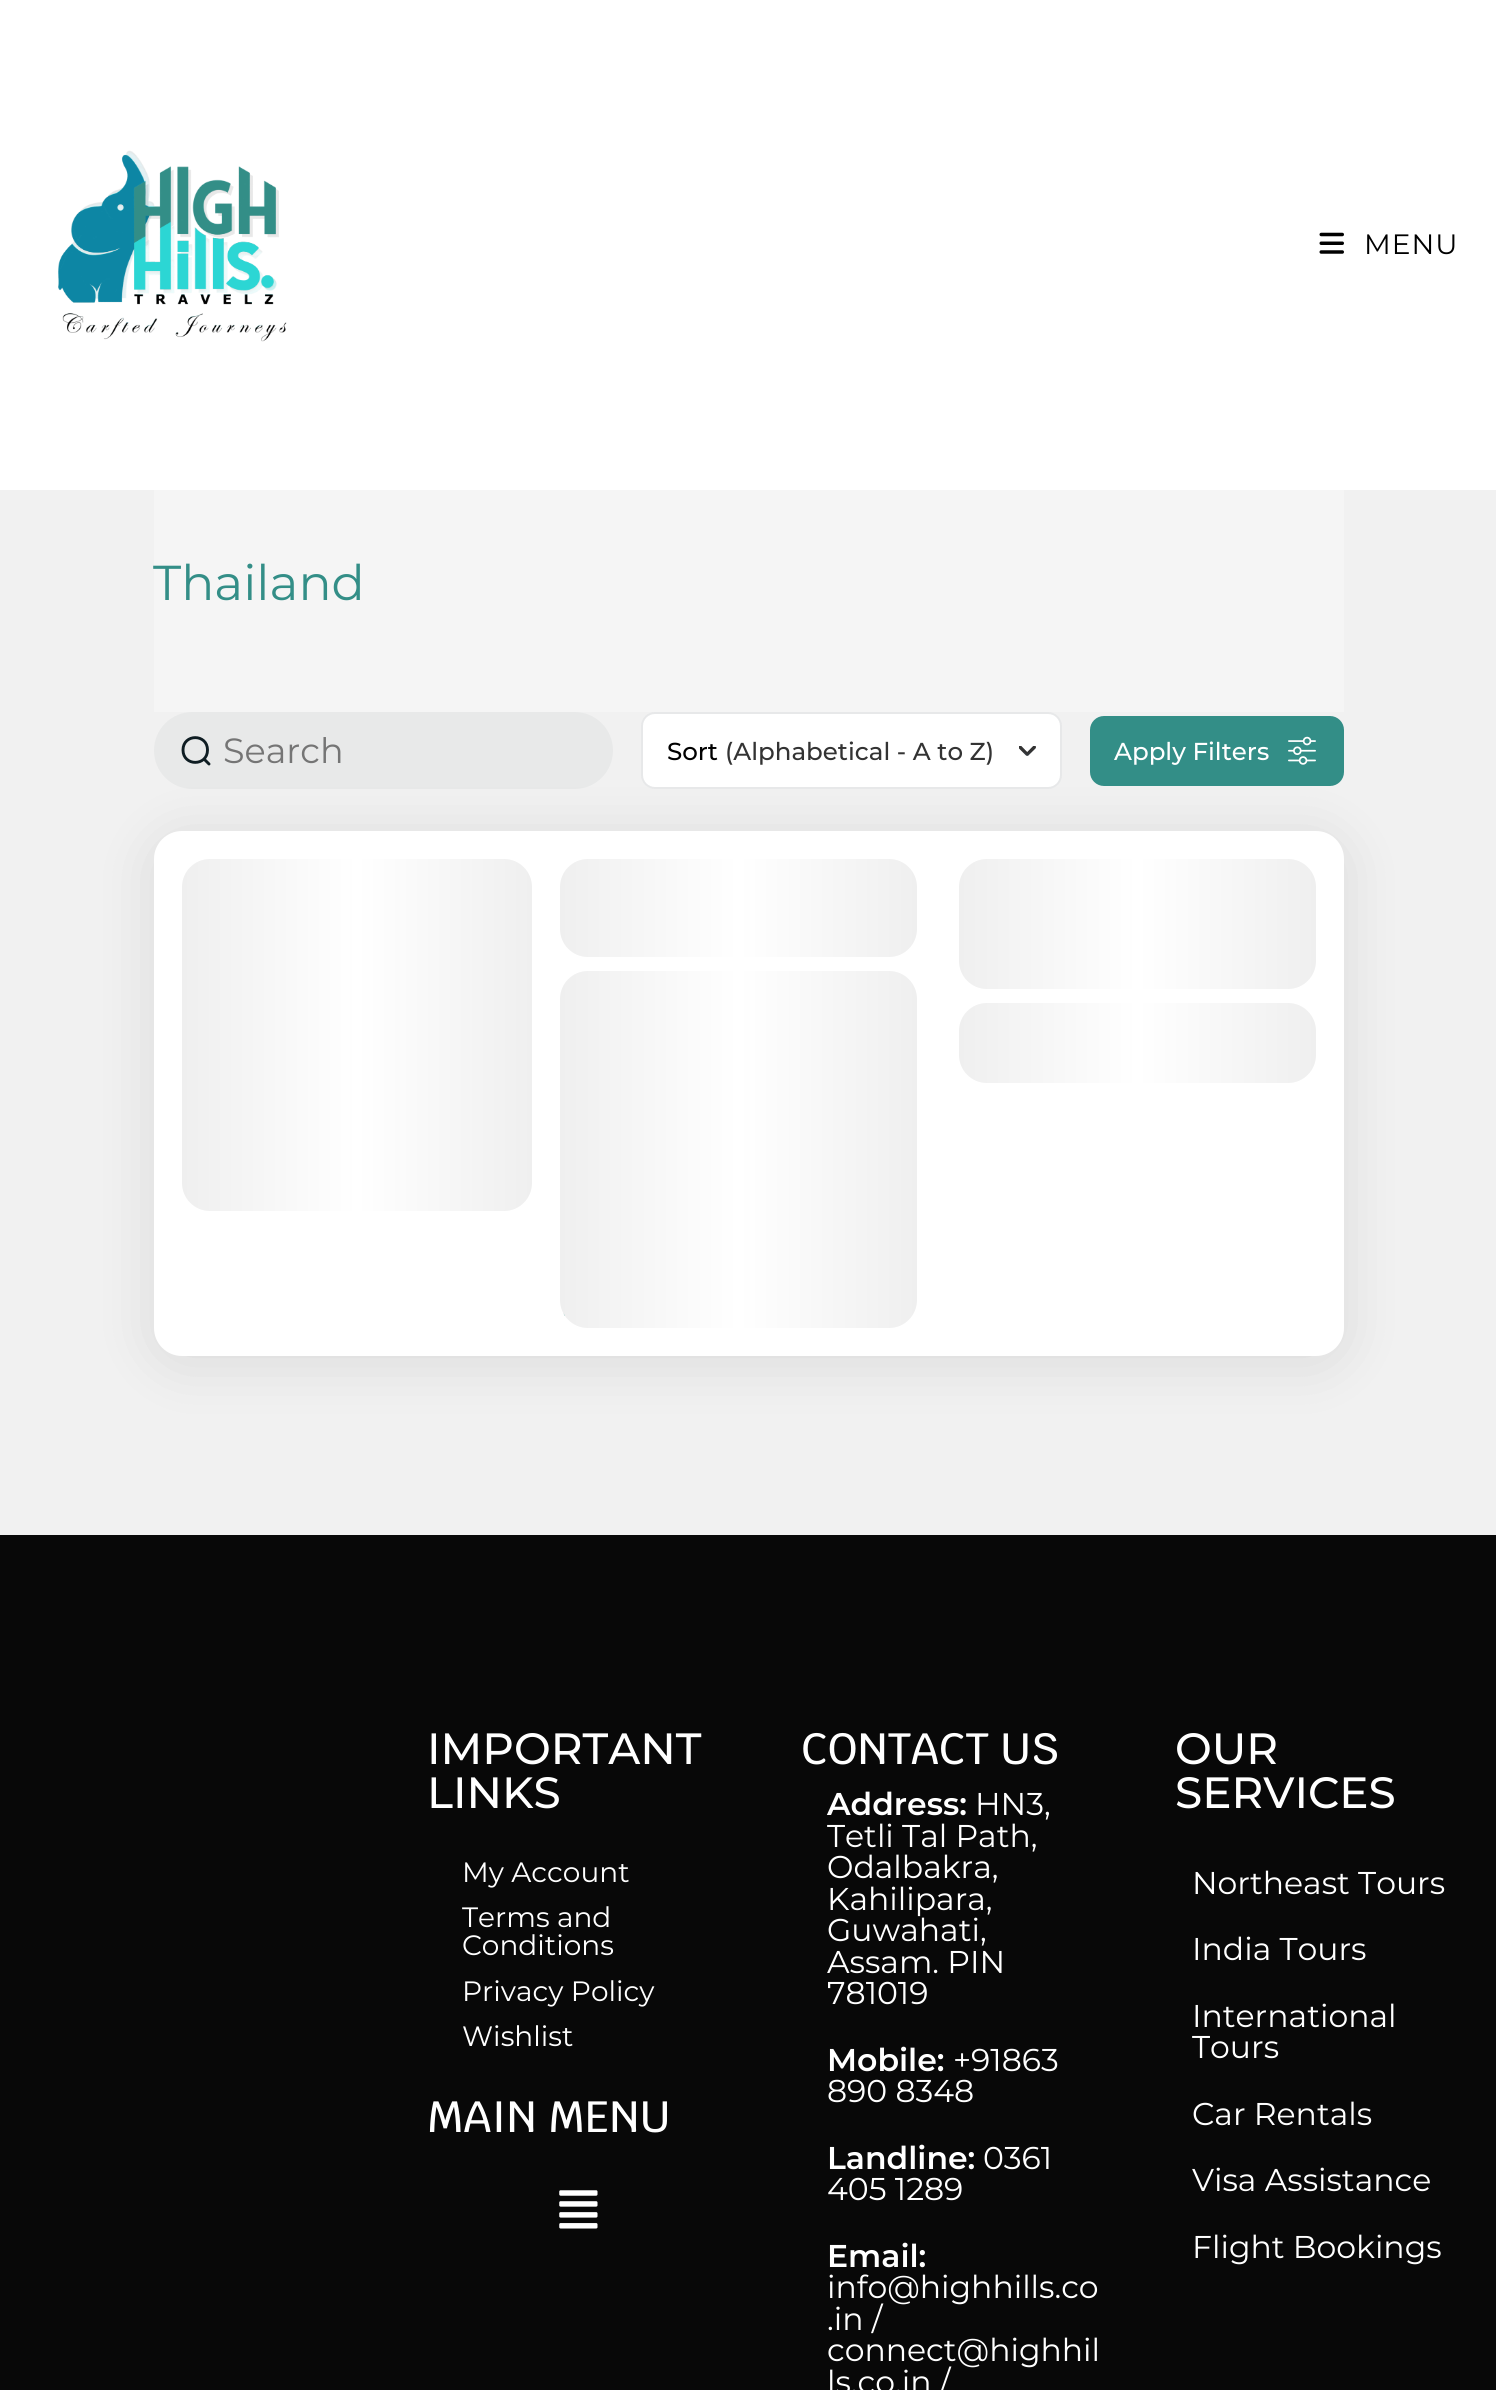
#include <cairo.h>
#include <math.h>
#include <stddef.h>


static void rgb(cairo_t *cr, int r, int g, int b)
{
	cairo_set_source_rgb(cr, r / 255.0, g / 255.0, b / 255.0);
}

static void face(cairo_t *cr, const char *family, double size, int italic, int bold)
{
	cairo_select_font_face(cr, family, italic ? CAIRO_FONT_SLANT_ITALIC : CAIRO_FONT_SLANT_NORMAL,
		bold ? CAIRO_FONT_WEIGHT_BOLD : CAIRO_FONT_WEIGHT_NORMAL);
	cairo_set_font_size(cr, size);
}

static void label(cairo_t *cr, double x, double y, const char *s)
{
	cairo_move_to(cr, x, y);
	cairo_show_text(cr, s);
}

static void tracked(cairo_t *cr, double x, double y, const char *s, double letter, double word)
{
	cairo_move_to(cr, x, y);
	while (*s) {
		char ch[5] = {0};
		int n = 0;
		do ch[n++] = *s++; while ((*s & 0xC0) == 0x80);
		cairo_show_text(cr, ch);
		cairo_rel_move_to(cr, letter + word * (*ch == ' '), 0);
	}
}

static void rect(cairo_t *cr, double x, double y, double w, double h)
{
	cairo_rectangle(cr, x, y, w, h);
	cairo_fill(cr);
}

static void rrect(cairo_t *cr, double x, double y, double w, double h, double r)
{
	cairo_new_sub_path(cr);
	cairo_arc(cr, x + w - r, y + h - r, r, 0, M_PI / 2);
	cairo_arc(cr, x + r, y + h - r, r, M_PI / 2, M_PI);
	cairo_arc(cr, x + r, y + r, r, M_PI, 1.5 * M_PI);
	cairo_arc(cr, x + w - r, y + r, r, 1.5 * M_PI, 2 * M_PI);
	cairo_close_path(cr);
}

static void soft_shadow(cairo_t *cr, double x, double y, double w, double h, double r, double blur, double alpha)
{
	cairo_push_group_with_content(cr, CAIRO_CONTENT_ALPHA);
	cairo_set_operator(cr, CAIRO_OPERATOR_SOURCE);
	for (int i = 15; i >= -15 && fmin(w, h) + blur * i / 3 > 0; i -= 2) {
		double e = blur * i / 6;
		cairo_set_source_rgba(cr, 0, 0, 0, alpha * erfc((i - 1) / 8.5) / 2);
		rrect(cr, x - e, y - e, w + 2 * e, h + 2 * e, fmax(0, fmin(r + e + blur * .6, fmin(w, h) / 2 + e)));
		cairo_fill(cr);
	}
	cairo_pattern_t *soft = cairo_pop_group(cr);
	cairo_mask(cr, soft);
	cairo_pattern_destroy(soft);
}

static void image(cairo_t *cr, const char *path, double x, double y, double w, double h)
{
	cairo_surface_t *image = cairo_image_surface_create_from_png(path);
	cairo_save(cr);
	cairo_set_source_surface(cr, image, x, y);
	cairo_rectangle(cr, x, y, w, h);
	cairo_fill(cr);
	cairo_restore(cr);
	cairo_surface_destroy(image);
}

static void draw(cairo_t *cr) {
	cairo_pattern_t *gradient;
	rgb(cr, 241, 241, 241);
	cairo_paint(cr);
	rgb(cr, 255, 255, 255);
	rect(cr, 0, 0, 1496, 490);
	image(cr, "image0.png", 58, 150, 229, 192);
	image(cr, "image1.png", 1319, 232, 25, 22);
	face(cr, "Montserrat", 28, 0, 0);
	rgb(cr, 0, 0, 0);
	tracked(cr, 1364, 254, "MENU", 1, 0);
	rgb(cr, 245, 245, 245);
	rect(cr, 154, 490, 1190, 222);
	face(cr, "Montserrat", 49, 0, 0);
	rgb(cr, 51, 142, 135);
	label(cr, 153, 600, "Thailand");
	rgb(cr, 232, 233, 233);
	rrect(cr, 154, 712, 459, 77, 38.5);
	cairo_fill(cr);
	cairo_new_path(cr);
	cairo_move_to(cr, 209, 764);
	cairo_line_to(cr, 204, 759);
	cairo_move_to(cr, 207.5, 750);
	cairo_curve_to(cr, 207.5, 766.5, 183, 766.5, 183, 750);
	cairo_curve_to(cr, 183, 733.5, 207.5, 733.5, 207.5, 750);
	cairo_close_path(cr);
	rgb(cr, 15, 29, 35);
	cairo_set_line_width(cr, 2.9);
	cairo_set_line_cap(cr, CAIRO_LINE_CAP_ROUND);
	cairo_set_line_join(cr, CAIRO_LINE_JOIN_ROUND);
	cairo_stroke(cr);
	face(cr, "Montserrat", 35, 0, 0);
	rgb(cr, 117, 117, 117);
	label(cr, 223, 763, "Search");
	rgb(cr, 51, 142, 135);
	rrect(cr, 1090, 716, 254, 70, 14);
	cairo_fill(cr);
	image(cr, "image3.png", 1288, 736, 28, 29);
	rgb(cr, 0, 0, 0);
	soft_shadow(cr, 154, 838, 1190, 525, 28, 28, 0.1);
	rgb(cr, 255, 255, 255);
	rrect(cr, 641, 712, 421, 77, 14);
	cairo_fill(cr);
	rrect(cr, 642, 713, 419, 75, 13);
	cairo_set_source_rgba(cr, 0.059, 0.114, 0.137, 0.1);
	cairo_set_line_width(cr, 2);
	cairo_set_line_cap(cr, CAIRO_LINE_CAP_BUTT);
	cairo_set_line_join(cr, CAIRO_LINE_JOIN_MITER);
	cairo_stroke(cr);
	face(cr, "Montserrat Medium", 24.5, 0, 0);
	rgb(cr, 0, 0, 0);
	label(cr, 667, 760, "Sort");
	rgb(cr, 51, 51, 51);
	label(cr, 725, 760, "(Alphabetical - A to Z)");
	image(cr, "image2.png", 1019, 746, 17, 10);
	rgb(cr, 255, 255, 255);
	label(cr, 1114, 760, "Apply Filters");
	rrect(cr, 154, 831, 1190, 525, 28);
	cairo_fill(cr);
	rgb(cr, 239, 239, 239);
	rrect(cr, 182, 859, 350, 352, 28);
	cairo_fill(cr);
	gradient = cairo_pattern_create_linear(182, 1035, 532, 1035);
	cairo_pattern_add_color_stop_rgba(gradient, 0, 1, 1, 1, 0);
	cairo_pattern_add_color_stop_rgba(gradient, 0.5, 1, 1, 1, 1);
	cairo_pattern_add_color_stop_rgba(gradient, 1, 1, 1, 1, 0);
	cairo_set_source(cr, gradient);
	cairo_pattern_destroy(gradient);
	rrect(cr, 182, 859, 350, 352, 28);
	cairo_fill(cr);
	rgb(cr, 239, 239, 239);
	rrect(cr, 560, 859, 357, 98, 28);
	cairo_fill(cr);
	gradient = cairo_pattern_create_linear(560, 908, 917, 908);
	cairo_pattern_add_color_stop_rgba(gradient, 0, 1, 1, 1, 0);
	cairo_pattern_add_color_stop_rgba(gradient, 0.5, 1, 1, 1, 1);
	cairo_pattern_add_color_stop_rgba(gradient, 1, 1, 1, 1, 0);
	cairo_set_source(cr, gradient);
	cairo_pattern_destroy(gradient);
	rrect(cr, 560, 859, 357, 98, 28);
	cairo_fill(cr);
	image(cr, "image4.png", 563, 1313, 2, 3);
	rgb(cr, 239, 239, 239);
	rrect(cr, 560, 971, 357, 357, 28);
	cairo_fill(cr);
	gradient = cairo_pattern_create_linear(560, 1150, 917, 1150);
	cairo_pattern_add_color_stop_rgba(gradient, 0, 1, 1, 1, 0);
	cairo_pattern_add_color_stop_rgba(gradient, 0.5, 1, 1, 1, 1);
	cairo_pattern_add_color_stop_rgba(gradient, 1, 1, 1, 1, 0);
	cairo_set_source(cr, gradient);
	cairo_pattern_destroy(gradient);
	rrect(cr, 560, 971, 357, 357, 28);
	cairo_fill(cr);
	rgb(cr, 239, 239, 239);
	rrect(cr, 959, 859, 357, 130, 28);
	cairo_fill(cr);
	gradient = cairo_pattern_create_linear(959, 924, 1316, 924);
	cairo_pattern_add_color_stop_rgba(gradient, 0, 1, 1, 1, 0);
	cairo_pattern_add_color_stop_rgba(gradient, 0.5, 1, 1, 1, 1);
	cairo_pattern_add_color_stop_rgba(gradient, 1, 1, 1, 1, 0);
	cairo_set_source(cr, gradient);
	cairo_pattern_destroy(gradient);
	rrect(cr, 959, 859, 357, 130, 28);
	cairo_fill(cr);
	rgb(cr, 239, 239, 239);
	rrect(cr, 959, 1003, 357, 80, 28);
	cairo_fill(cr);
	gradient = cairo_pattern_create_linear(959, 1043, 1316, 1043);
	cairo_pattern_add_color_stop_rgba(gradient, 0, 1, 1, 1, 0);
	cairo_pattern_add_color_stop_rgba(gradient, 0.5, 1, 1, 1, 1);
	cairo_pattern_add_color_stop_rgba(gradient, 1, 1, 1, 1, 0);
	cairo_set_source(cr, gradient);
	cairo_pattern_destroy(gradient);
	rrect(cr, 959, 1003, 357, 80, 28);
	cairo_fill(cr);
	rgb(cr, 8, 8, 8);
	rect(cr, 0, 1535, 1496, 855);
	face(cr, "Montserrat Medium", 43.75, 0, 0);
	rgb(cr, 255, 255, 255);
	label(cr, 427, 1764, "IMPORTANT");
	label(cr, 427, 1808, "LINKS");
	face(cr, "Montserrat", 28, 0, 0);
	label(cr, 462, 1882, "My Account");
	label(cr, 462, 1927, "Terms and");
	label(cr, 462, 1955, "Conditions");
	label(cr, 462, 2001, "Privacy Policy");
	label(cr, 462, 2046, "Wishlist");
	face(cr, "Krub Medium", 43.75, 0, 0);
	label(cr, 427, 2132, "MAIN MENU");
	image(cr, "image5.png", 559, 2190, 39, 39);
	label(cr, 801, 1764, "CONTACT US");
	face(cr, "Montserrat SemiBold", 31.5, 0, 0);
	label(cr, 827, 1815, "Address:");
	face(cr, "Montserrat", 31.5, 0, 0);
	label(cr, 975, 1815, "HN3,");
	label(cr, 827, 1847, "Tetli Tal Path,");
	label(cr, 827, 1878, "Odalbakra,");
	label(cr, 827, 1910, "Kahilipara,");
	label(cr, 827, 1941, "Guwahati,");
	label(cr, 827, 1973, "Assam. PIN");
	label(cr, 827, 2004, "781019");
	face(cr, "Montserrat SemiBold", 31.5, 0, 0);
	label(cr, 827, 2071, "Mobile:");
	face(cr, "Montserrat", 31.5, 0, 0);
	label(cr, 953, 2071, "+91863");
	label(cr, 827, 2102, "890 8348");
	face(cr, "Montserrat SemiBold", 31.5, 0, 0);
	label(cr, 827, 2169, "Landline:");
	face(cr, "Montserrat", 31.5, 0, 0);
	label(cr, 983, 2169, "0361");
	label(cr, 827, 2200, "405 1289");
	face(cr, "Montserrat SemiBold", 31.5, 0, 0);
	label(cr, 827, 2267, "Email:");
	face(cr, "Montserrat", 31.5, 0, 0);
	label(cr, 827, 2298, "info@highhills.co");
	label(cr, 827, 2330, ".in /");
	label(cr, 827, 2361, "connect@highhil");
	label(cr, 827, 2393, "ls.co.in /");
	face(cr, "Montserrat Medium", 43.75, 0, 0);
	label(cr, 1175, 1764, "OUR");
	label(cr, 1175, 1808, "SERVICES");
	face(cr, "Montserrat", 31.5, 0, 0);
	label(cr, 1192, 1894, "Northeast Tours");
	label(cr, 1192, 1960, "India Tours");
	label(cr, 1192, 2027, "International");
	label(cr, 1192, 2058, "Tours");
	label(cr, 1192, 2125, "Car Rentals");
	label(cr, 1192, 2191, "Visa Assistance");
	label(cr, 1192, 2258, "Flight Bookings");
}

int main(void) {
	cairo_surface_t *surface = cairo_image_surface_create(CAIRO_FORMAT_RGB24, 1496, 2390);
	cairo_t *cr = cairo_create(surface);
	cairo_font_options_t *options = cairo_font_options_create();
	cairo_font_options_set_hint_metrics(options, CAIRO_HINT_METRICS_OFF);
	cairo_font_options_set_hint_style(options, CAIRO_HINT_STYLE_NONE);
	cairo_set_font_options(cr, options);
	cairo_set_miter_limit(cr, 4);
	draw(cr);
	cairo_surface_write_to_png(surface, "render.png");
	cairo_font_options_destroy(options);
	cairo_destroy(cr);
	cairo_surface_destroy(surface);
	return 0;
}
